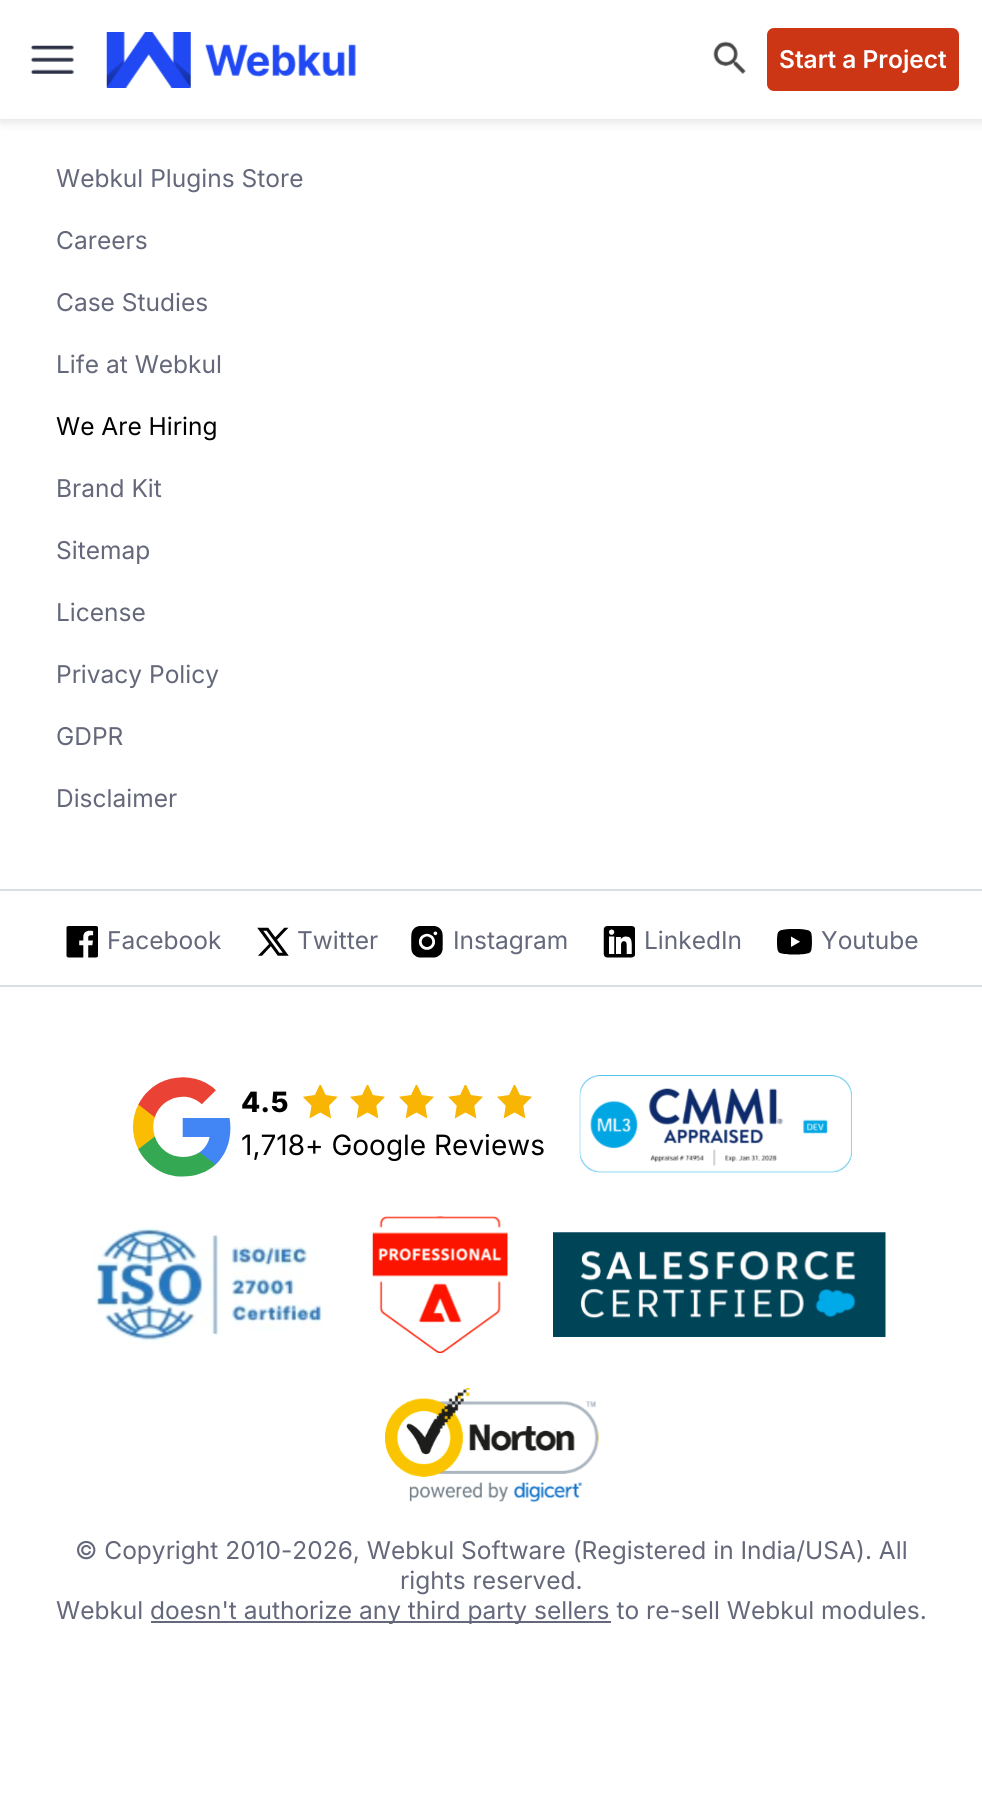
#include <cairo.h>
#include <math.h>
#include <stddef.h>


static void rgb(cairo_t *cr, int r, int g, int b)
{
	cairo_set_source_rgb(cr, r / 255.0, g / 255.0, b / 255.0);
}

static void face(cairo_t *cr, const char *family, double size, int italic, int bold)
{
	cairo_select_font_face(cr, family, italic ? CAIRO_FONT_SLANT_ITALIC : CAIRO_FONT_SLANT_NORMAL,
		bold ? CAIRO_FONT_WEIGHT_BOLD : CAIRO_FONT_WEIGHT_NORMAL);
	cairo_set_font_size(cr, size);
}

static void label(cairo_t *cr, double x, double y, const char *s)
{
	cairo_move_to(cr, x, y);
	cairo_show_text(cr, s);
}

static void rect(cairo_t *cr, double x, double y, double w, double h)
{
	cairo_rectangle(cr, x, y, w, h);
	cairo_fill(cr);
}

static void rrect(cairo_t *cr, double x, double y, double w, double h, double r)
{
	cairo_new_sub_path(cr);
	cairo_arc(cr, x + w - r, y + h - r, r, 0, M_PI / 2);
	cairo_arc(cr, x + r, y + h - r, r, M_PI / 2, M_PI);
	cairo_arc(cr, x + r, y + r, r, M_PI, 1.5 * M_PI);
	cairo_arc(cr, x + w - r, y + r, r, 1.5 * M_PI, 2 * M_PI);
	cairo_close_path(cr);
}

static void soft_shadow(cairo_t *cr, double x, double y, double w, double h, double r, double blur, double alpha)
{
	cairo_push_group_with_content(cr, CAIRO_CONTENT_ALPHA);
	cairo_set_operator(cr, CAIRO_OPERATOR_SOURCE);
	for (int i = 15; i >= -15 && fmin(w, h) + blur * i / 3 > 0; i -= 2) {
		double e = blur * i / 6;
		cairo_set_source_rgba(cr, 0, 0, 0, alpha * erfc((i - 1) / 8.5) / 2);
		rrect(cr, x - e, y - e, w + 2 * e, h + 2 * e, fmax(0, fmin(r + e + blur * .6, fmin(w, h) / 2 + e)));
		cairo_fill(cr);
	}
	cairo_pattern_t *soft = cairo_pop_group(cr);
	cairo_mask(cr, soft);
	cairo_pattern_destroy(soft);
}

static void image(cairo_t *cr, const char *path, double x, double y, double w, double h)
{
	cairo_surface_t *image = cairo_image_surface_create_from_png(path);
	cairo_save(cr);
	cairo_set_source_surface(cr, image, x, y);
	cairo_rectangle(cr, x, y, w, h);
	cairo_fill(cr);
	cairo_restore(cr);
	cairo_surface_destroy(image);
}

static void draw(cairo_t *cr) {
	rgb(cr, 255, 255, 255);
	cairo_paint(cr);
	rgb(cr, 0, 0, 0);
	soft_shadow(cr, 0, 0, 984, 119, 0, 7, 0.16);
	rgb(cr, 255, 255, 255);
	rect(cr, 0, 0, 982, 119);
	image(cr, "image0.png", 30, 45, 44, 29);
	image(cr, "image1.png", 106, 32, 250, 56);
	image(cr, "image2.png", 713, 41, 33, 33);
	rgb(cr, 205, 54, 20);
	rrect(cr, 767, 28, 192, 63, 7);
	cairo_fill(cr);
	face(cr, "Inter SemiBold", 24.5, 0, 0);
	rgb(cr, 255, 255, 255);
	label(cr, 779, 68, "Start a Project");
	face(cr, "Inter", 24.5, 0, 0);
	rgb(cr, 100, 104, 122);
	label(cr, 56, 187, "Webkul Plugins Store");
	label(cr, 56, 249, "Careers");
	label(cr, 56, 311, "Case Studies");
	label(cr, 56, 373, "Life at Webkul");
	rgb(cr, 0, 0, 0);
	label(cr, 56, 435, "We Are Hiring");
	rgb(cr, 100, 104, 122);
	label(cr, 56, 497, "Brand Kit");
	label(cr, 56, 559, "Sitemap");
	label(cr, 56, 621, "License");
	label(cr, 56, 683, "Privacy Policy");
	label(cr, 56, 745, "GDPR");
	label(cr, 56, 807, "Disclaimer");
	rgb(cr, 215, 223, 226);
	rect(cr, 0, 889, 982, 2);
	rect(cr, 0, 985, 982, 2);
	image(cr, "image3.png", 66, 926, 32, 32);
	rgb(cr, 100, 104, 122);
	label(cr, 107, 949, "Facebook");
	image(cr, "image4.png", 257, 927, 32, 29);
	label(cr, 297, 949, "Twitter");
	image(cr, "image5.png", 411, 926, 32, 32);
	label(cr, 453, 949, "Instagram");
	image(cr, "image6.png", 603, 926, 32, 32);
	label(cr, 644, 949, "LinkedIn");
	image(cr, "image7.png", 777, 929, 35, 26);
	label(cr, 821, 949, "Youtube");
	image(cr, "image8.png", 133, 1077, 98, 100);
	face(cr, "Inter ExtraBold", 28, 0, 0);
	rgb(cr, 0, 0, 0);
	label(cr, 241, 1112, "4.5");
	image(cr, "image9.png", 303, 1085, 35, 34);
	image(cr, "image10.png", 350, 1085, 35, 34);
	image(cr, "image10.png", 399, 1085, 35, 34);
	image(cr, "image10.png", 448, 1085, 35, 34);
	image(cr, "image11.png", 497, 1085, 35, 34);
	face(cr, "Inter", 28, 0, 0);
	label(cr, 241, 1155, "1,718+ Google Reviews");
	image(cr, "image12.png", 579, 1075, 273, 98);
	image(cr, "image13.png", 93, 1227, 230, 117);
	image(cr, "image14.png", 372, 1216, 136, 137);
	image(cr, "image15.png", 553, 1232, 333, 105);
	image(cr, "image16.png", 385, 1388, 214, 114);
	face(cr, "Inter", 24.5, 0, 0);
	rgb(cr, 100, 104, 122);
	label(cr, 75, 1559, "© Copyright 2010-2026, Webkul Software (Registered in India/USA). All");
	label(cr, 400, 1589, "rights reserved.");
	label(cr, 56, 1619, "Webkul");
	rect(cr, 151, 1621, 460, 2);
	label(cr, 150, 1619, "doesn't authorize any third party sellers to re-sell Webkul modules.");
}

int main(void) {
	cairo_surface_t *surface = cairo_image_surface_create(CAIRO_FORMAT_RGB24, 982, 1799);
	cairo_t *cr = cairo_create(surface);
	cairo_font_options_t *options = cairo_font_options_create();
	cairo_font_options_set_hint_metrics(options, CAIRO_HINT_METRICS_OFF);
	cairo_font_options_set_hint_style(options, CAIRO_HINT_STYLE_NONE);
	cairo_set_font_options(cr, options);
	cairo_set_miter_limit(cr, 4);
	draw(cr);
	cairo_surface_write_to_png(surface, "render.png");
	cairo_font_options_destroy(options);
	cairo_destroy(cr);
	cairo_surface_destroy(surface);
	return 0;
}
